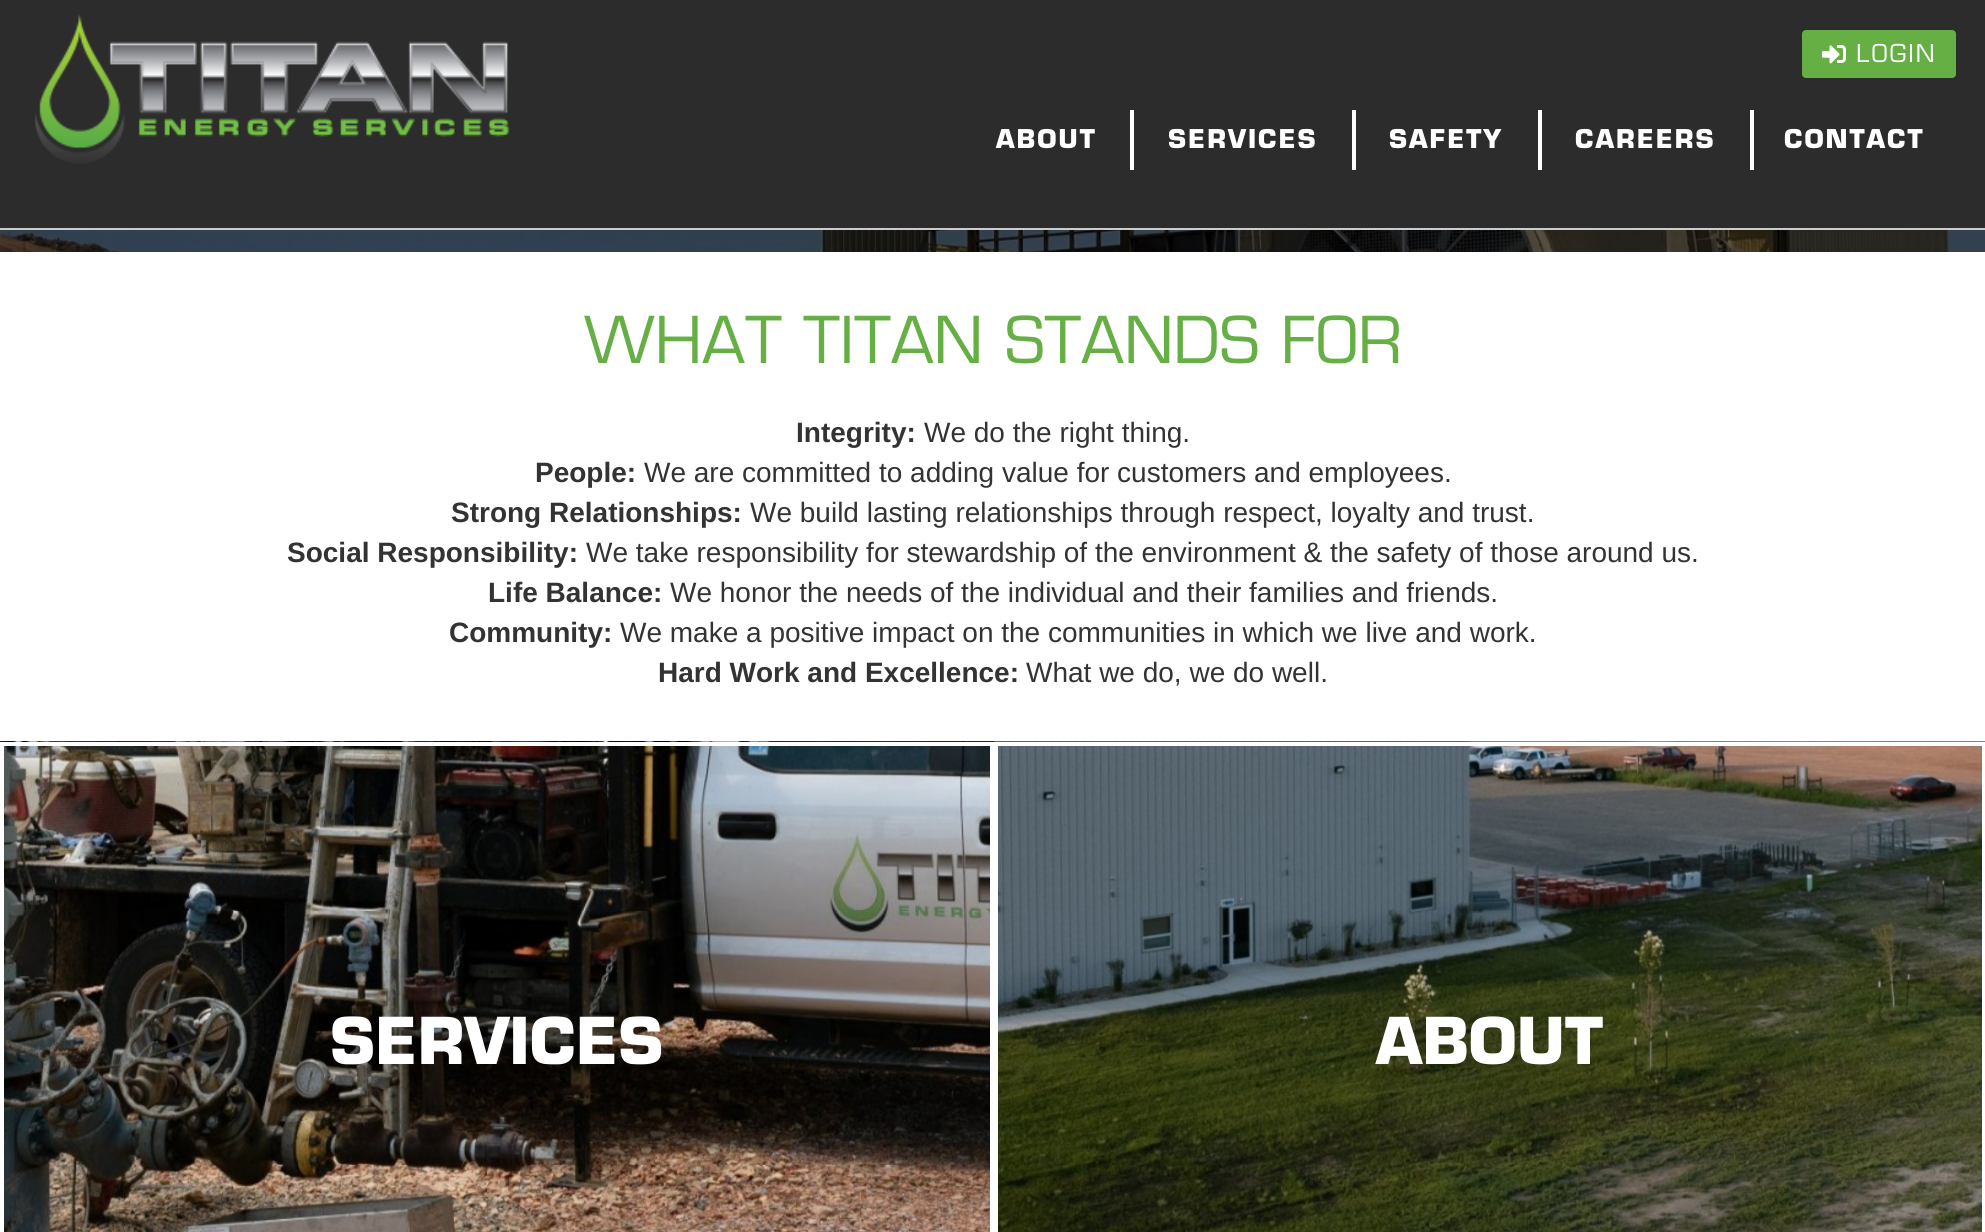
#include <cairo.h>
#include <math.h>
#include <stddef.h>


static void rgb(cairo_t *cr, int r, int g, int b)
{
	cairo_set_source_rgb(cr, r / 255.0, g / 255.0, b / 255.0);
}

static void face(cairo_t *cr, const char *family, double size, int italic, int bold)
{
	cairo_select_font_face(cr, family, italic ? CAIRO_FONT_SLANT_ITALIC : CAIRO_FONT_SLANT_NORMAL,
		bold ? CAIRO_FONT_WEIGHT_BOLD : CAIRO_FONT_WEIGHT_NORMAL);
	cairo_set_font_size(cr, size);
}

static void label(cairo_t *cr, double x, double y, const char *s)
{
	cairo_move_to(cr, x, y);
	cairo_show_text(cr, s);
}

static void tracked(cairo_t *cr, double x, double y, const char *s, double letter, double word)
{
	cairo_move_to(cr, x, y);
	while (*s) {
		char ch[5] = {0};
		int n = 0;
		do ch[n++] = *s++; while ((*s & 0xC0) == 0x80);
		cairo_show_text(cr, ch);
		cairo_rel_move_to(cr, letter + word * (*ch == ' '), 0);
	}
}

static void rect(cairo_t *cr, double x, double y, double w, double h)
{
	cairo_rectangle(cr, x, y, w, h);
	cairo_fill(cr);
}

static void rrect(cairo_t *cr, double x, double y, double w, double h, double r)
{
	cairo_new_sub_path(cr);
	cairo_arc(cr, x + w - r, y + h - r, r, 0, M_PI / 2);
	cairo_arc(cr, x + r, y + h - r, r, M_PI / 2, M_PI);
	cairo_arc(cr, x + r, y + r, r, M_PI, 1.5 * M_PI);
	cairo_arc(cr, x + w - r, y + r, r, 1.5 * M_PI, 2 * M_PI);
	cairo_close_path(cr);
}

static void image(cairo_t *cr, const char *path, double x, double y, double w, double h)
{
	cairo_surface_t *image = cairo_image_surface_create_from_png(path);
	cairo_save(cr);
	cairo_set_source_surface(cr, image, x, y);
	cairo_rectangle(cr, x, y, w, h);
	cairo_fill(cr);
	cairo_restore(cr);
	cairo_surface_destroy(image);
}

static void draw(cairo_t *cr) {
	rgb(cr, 255, 255, 255);
	cairo_paint(cr);
	rgb(cr, 45, 44, 44);
	rect(cr, 0, 0, 1985, 228);
	rgb(cr, 204, 204, 204);
	rect(cr, 0, 228, 1985, 2);
	rgb(cr, 101, 175, 69);
	rrect(cr, 1802, 30, 154, 48, 4);
	cairo_fill(cr);
	image(cr, "image0.png", 1822, 45, 24, 19);
	face(cr, "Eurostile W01 Medium", 24, 0, 0);
	rgb(cr, 255, 255, 255);
	tracked(cr, 1856, 62, "LOGIN", 2, 0);
	image(cr, "image1.png", 35, 14, 475, 150);
	rect(cr, 1130, 110, 4, 60);
	face(cr, "Eurostile W01", 25.25, 0, 1);
	tracked(cr, 996, 148, "ABOUT", 2, 0);
	rect(cr, 1352, 110, 4, 60);
	tracked(cr, 1168, 148, "SERVICES", 2, 0);
	rect(cr, 1538, 110, 4, 60);
	tracked(cr, 1389, 148, "SAFETY", 2, 0);
	rect(cr, 1750, 110, 4, 60);
	tracked(cr, 1575, 148, "CAREERS", 2, 0);
	tracked(cr, 1784, 148, "CONTACT", 2, 0);
	image(cr, "image2.png", 0, 230, 1985, 22);
	face(cr, "Eurostile W01 Medium", 63, 0, 0);
	rgb(cr, 101, 175, 69);
	label(cr, 584, 363, "WHAT TITAN STANDS FOR");
	face(cr, "Liberation Sans", 28, 0, 1);
	rgb(cr, 51, 51, 51);
	label(cr, 796, 442, "Integrity:");
	face(cr, "Liberation Sans", 28, 0, 0);
	label(cr, 924, 442, "We do the right thing.");
	face(cr, "Liberation Sans", 28, 0, 1);
	label(cr, 535, 482, "People:");
	face(cr, "Liberation Sans", 28, 0, 0);
	label(cr, 644, 482, "We are committed to adding value for customers and employees.");
	face(cr, "Liberation Sans", 28, 0, 1);
	label(cr, 451, 522, "Strong Relationships:");
	face(cr, "Liberation Sans", 28, 0, 0);
	label(cr, 750, 522, "We build lasting relationships through respect, loyalty and trust.");
	face(cr, "Liberation Sans", 28, 0, 1);
	label(cr, 287, 562, "Social Responsibility:");
	face(cr, "Liberation Sans", 28, 0, 0);
	label(cr, 586, 562, "We take responsibility for stewardship of the environment & the safety of those around us.");
	face(cr, "Liberation Sans", 28, 0, 1);
	label(cr, 488, 602, "Life Balance:");
	face(cr, "Liberation Sans", 28, 0, 0);
	label(cr, 670, 602, "We honor the needs of the individual and their families and friends.");
	face(cr, "Liberation Sans", 28, 0, 1);
	label(cr, 449, 642, "Community:");
	face(cr, "Liberation Sans", 28, 0, 0);
	label(cr, 620, 642, "We make a positive impact on the communities in which we live and work.");
	face(cr, "Liberation Sans", 28, 0, 1);
	label(cr, 658, 682, "Hard Work and Excellence:");
	face(cr, "Liberation Sans", 28, 0, 0);
	label(cr, 1026, 682, "What we do, we do well.");
	image(cr, "image3.png", 0, 741, 994, 491);
	cairo_rectangle(cr, 2, 744, 990, 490);
	rgb(cr, 255, 255, 255);
	cairo_set_line_width(cr, 4);
	cairo_stroke(cr);
	face(cr, "Eurostile W01", 63, 0, 1);
	label(cr, 330, 1064, "SERVICES");
	image(cr, "image4.png", 994, 741, 991, 491);
	cairo_rectangle(cr, 996, 744, 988, 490);
	cairo_stroke(cr);
	label(cr, 1376, 1064, "ABOUT");
}

int main(void) {
	cairo_surface_t *surface = cairo_image_surface_create(CAIRO_FORMAT_RGB24, 1985, 1232);
	cairo_t *cr = cairo_create(surface);
	cairo_font_options_t *options = cairo_font_options_create();
	cairo_font_options_set_hint_metrics(options, CAIRO_HINT_METRICS_OFF);
	cairo_font_options_set_hint_style(options, CAIRO_HINT_STYLE_NONE);
	cairo_set_font_options(cr, options);
	cairo_set_miter_limit(cr, 4);
	draw(cr);
	cairo_surface_write_to_png(surface, "render.png");
	cairo_font_options_destroy(options);
	cairo_destroy(cr);
	cairo_surface_destroy(surface);
	return 0;
}
